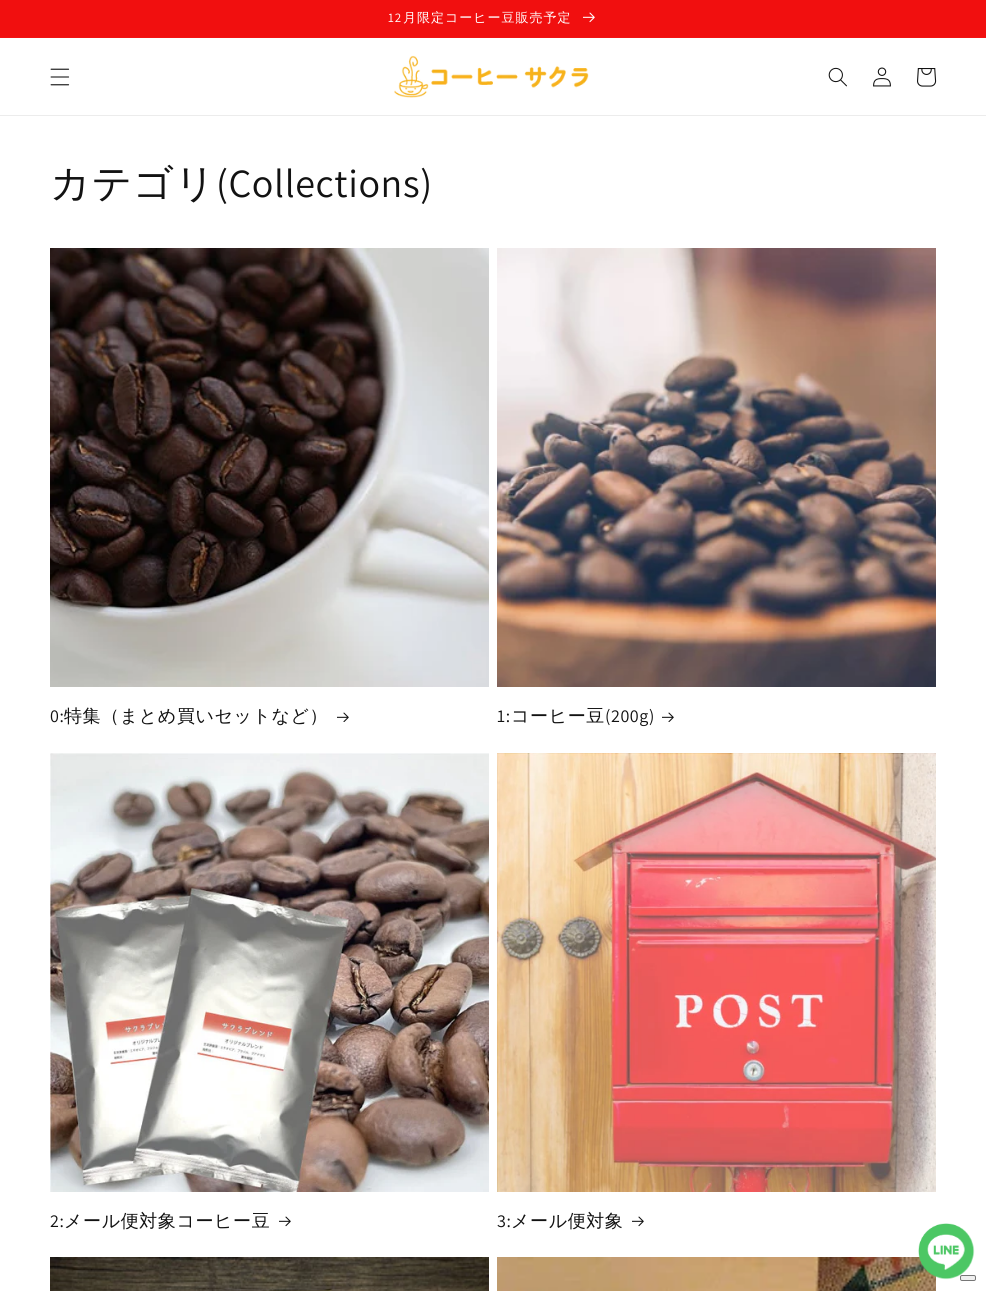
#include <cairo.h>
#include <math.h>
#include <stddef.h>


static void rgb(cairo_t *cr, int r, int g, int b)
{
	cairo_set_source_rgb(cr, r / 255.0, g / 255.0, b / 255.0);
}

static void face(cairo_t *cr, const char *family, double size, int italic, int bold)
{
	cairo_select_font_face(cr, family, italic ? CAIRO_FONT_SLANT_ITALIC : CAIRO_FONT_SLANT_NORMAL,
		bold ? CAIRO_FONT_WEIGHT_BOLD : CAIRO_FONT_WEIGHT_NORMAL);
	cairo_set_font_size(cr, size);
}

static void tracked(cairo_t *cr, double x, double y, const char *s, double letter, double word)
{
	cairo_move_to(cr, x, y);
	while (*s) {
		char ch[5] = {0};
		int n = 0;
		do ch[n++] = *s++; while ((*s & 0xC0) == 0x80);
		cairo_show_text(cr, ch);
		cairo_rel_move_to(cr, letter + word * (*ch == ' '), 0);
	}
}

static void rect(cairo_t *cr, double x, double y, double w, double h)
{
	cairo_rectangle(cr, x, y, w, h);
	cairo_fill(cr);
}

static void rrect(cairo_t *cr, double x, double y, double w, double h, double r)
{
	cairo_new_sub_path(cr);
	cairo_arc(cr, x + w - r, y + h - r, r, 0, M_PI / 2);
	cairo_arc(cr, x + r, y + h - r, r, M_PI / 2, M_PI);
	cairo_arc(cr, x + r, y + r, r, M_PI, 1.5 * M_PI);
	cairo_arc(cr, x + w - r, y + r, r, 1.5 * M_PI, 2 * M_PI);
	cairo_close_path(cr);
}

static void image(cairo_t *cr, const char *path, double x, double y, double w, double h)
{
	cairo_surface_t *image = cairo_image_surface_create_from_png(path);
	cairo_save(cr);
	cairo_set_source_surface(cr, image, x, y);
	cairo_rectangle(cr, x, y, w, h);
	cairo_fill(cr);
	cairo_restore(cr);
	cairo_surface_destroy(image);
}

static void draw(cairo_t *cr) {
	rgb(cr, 255, 255, 255);
	cairo_paint(cr);
	rgb(cr, 241, 20, 20);
	rect(cr, 0, 37, 986, 1);
	rgb(cr, 241, 15, 15);
	rect(cr, 0, 0, 986, 37);
	face(cr, "Assistant", 13, 0, 0);
	rgb(cr, 255, 255, 255);
	tracked(cr, 388, 22, "12", 1, 0);
	face(cr, "WenQuanYi Zen Hei Medium", 13, 0, 0);
	tracked(cr, 403, 22, "月限定コーヒー豆販売予定", 1, 0);
	image(cr, "image0.png", 583, 12, 12, 11);
	rgb(cr, 236, 236, 236);
	rect(cr, 0, 115, 986, 1);
	image(cr, "image1.png", 50, 68, 20, 18);
	image(cr, "image2.png", 394, 55, 195, 43);
	image(cr, "image3.png", 828, 67, 19, 20);
	image(cr, "image4.png", 873, 67, 18, 20);
	image(cr, "image5.png", 917, 68, 20, 19);
	face(cr, "WenQuanYi Zen Hei Medium", 40, 0, 0);
	rgb(cr, 18, 18, 18);
	tracked(cr, 50, 197, "カテゴリ", 0.6, 0);
	face(cr, "Assistant", 40, 0, 0);
	tracked(cr, 216, 197, "(Collections)", 0.6, 0);
	image(cr, "image6.png", 50, 248, 439, 439);
	face(cr, "Assistant", 18, 0, 0);
	tracked(cr, 50, 722, "0:", 0.6, 0);
	face(cr, "WenQuanYi Zen Hei Medium", 18, 0, 0);
	tracked(cr, 64, 722, "特集（まとめ買いセットなど）", 0.6, 0);
	image(cr, "image7.png", 337, 712, 12, 10);
	image(cr, "image8.png", 497, 248, 439, 439);
	face(cr, "Assistant", 18, 0, 0);
	tracked(cr, 497, 722, "1:", 0.6, 0);
	face(cr, "WenQuanYi Zen Hei Medium", 18, 0, 0);
	tracked(cr, 511, 722, "コーヒー豆", 0.6, 0);
	face(cr, "Assistant", 18, 0, 0);
	tracked(cr, 605, 722, "(200g)", 0.6, 0);
	image(cr, "image7.png", 662, 712, 12, 10);
	image(cr, "image9.png", 50, 753, 439, 439);
	tracked(cr, 50, 1227, "2:", 0.6, 0);
	face(cr, "WenQuanYi Zen Hei Medium", 18, 0, 0);
	tracked(cr, 64, 1227, "メール便対象コーヒー豆", 0.6, 0);
	image(cr, "image10.png", 279, 1216, 12, 11);
	image(cr, "image11.png", 497, 753, 439, 439);
	face(cr, "Assistant", 18, 0, 0);
	tracked(cr, 497, 1227, "3:", 0.6, 0);
	face(cr, "WenQuanYi Zen Hei Medium", 18, 0, 0);
	tracked(cr, 511, 1227, "メール便対象", 0.6, 0);
	image(cr, "image10.png", 632, 1216, 12, 11);
	image(cr, "image12.png", 50, 1257, 439, 34);
	image(cr, "image13.png", 497, 1257, 439, 34);
	rgb(cr, 239, 239, 239);
	rrect(cr, 960.5, 1275.5, 15, 5, 1.5);
	cairo_fill_preserve(cr);
	rgb(cr, 118, 118, 118);
	cairo_set_line_width(cr, 1);
	cairo_stroke(cr);
	image(cr, "image14.png", 918, 1223, 57, 57);
}

int main(void) {
	cairo_surface_t *surface = cairo_image_surface_create(CAIRO_FORMAT_RGB24, 986, 1291);
	cairo_t *cr = cairo_create(surface);
	cairo_font_options_t *options = cairo_font_options_create();
	cairo_font_options_set_hint_metrics(options, CAIRO_HINT_METRICS_OFF);
	cairo_font_options_set_hint_style(options, CAIRO_HINT_STYLE_NONE);
	cairo_set_font_options(cr, options);
	cairo_set_miter_limit(cr, 4);
	draw(cr);
	cairo_surface_write_to_png(surface, "render.png");
	cairo_font_options_destroy(options);
	cairo_destroy(cr);
	cairo_surface_destroy(surface);
	return 0;
}
